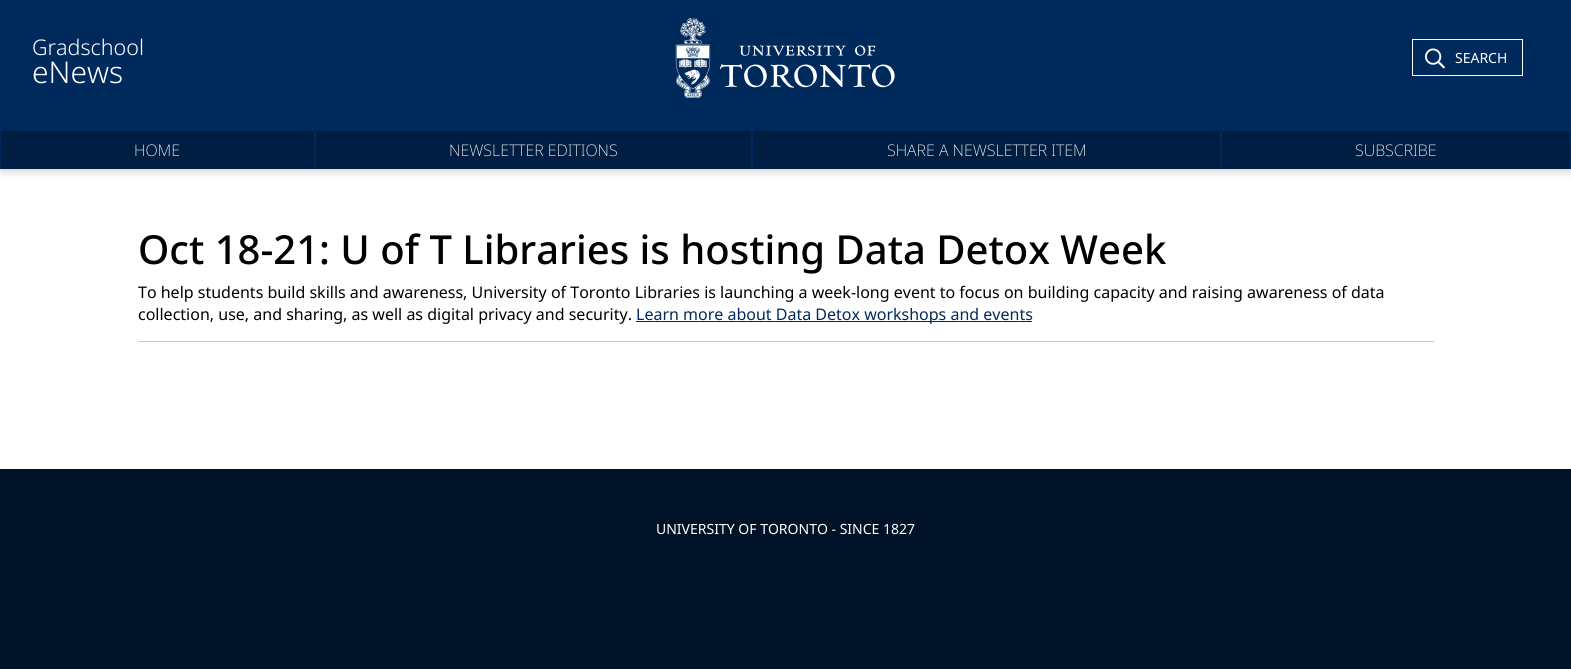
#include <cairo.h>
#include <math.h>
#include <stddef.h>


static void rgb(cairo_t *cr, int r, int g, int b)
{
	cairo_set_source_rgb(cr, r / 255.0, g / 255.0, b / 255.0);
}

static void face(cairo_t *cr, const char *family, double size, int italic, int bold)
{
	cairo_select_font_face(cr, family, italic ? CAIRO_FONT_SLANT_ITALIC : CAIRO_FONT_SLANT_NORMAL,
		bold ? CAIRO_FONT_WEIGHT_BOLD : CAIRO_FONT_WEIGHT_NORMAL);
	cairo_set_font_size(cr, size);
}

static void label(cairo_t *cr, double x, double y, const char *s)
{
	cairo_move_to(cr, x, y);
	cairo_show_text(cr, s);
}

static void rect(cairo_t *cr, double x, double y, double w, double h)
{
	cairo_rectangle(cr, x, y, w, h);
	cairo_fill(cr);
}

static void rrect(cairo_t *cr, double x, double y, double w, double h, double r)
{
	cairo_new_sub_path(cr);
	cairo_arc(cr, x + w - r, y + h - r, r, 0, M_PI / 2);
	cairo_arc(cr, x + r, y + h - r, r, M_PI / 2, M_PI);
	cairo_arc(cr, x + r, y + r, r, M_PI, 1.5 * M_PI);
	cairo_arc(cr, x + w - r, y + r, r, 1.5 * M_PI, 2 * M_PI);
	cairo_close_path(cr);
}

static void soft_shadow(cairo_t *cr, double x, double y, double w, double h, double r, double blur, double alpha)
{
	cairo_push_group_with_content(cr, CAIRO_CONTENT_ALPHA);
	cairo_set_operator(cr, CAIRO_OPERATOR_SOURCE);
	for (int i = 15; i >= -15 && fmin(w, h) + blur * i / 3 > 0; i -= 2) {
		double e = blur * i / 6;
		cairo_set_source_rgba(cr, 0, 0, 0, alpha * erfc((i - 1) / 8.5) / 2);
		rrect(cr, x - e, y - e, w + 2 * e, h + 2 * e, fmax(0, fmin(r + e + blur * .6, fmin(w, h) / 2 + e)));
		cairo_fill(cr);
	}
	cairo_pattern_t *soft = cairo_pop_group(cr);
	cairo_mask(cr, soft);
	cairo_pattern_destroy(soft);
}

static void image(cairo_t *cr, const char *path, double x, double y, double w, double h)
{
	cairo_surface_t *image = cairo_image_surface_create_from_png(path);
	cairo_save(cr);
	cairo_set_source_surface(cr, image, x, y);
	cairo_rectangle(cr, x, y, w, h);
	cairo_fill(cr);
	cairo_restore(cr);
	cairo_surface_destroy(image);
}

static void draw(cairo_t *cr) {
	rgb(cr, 255, 255, 255);
	cairo_paint(cr);
	rgb(cr, 0, 0, 0);
	soft_shadow(cr, 0, 2, 1571, 169, 0, 5, 0.2);
	rgb(cr, 0, 42, 92);
	rect(cr, 0, 0, 1571, 169);
	face(cr, "Noto Sans Light", 21.5, 0, 0);
	rgb(cr, 255, 255, 255);
	label(cr, 32, 55, "Gradschool");
	face(cr, "Noto Sans Light", 30, 0, 0);
	label(cr, 32, 83, "eNews");
	image(cr, "image0.png", 675, 18, 220, 80);
	cairo_rectangle(cr, 1412.5, 39.5, 110, 36);
	cairo_set_line_width(cr, 1);
	cairo_stroke(cr);
	image(cr, "image1.png", 1425, 48, 20, 21);
	face(cr, "Noto Sans", 14, 0, 0);
	label(cr, 1455, 63, "SEARCH");
	rgb(cr, 0, 30, 66);
	rect(cr, 1, 131, 313, 38);
	face(cr, "Noto Sans ExtraLight", 16, 0, 0);
	rgb(cr, 255, 255, 255);
	label(cr, 134, 156, "HOME");
	rgb(cr, 0, 30, 66);
	rect(cr, 316, 131, 435, 38);
	rgb(cr, 255, 255, 255);
	label(cr, 449, 156, "NEWSLETTER EDITIONS");
	rgb(cr, 0, 30, 66);
	rect(cr, 753, 131, 467, 38);
	rgb(cr, 255, 255, 255);
	label(cr, 887, 156, "SHARE A NEWSLETTER ITEM");
	rgb(cr, 0, 30, 66);
	rect(cr, 1222, 131, 348, 38);
	rgb(cr, 255, 255, 255);
	label(cr, 1355, 156, "SUBSCRIBE");
	face(cr, "Noto Sans Medium", 40, 0, 0);
	rgb(cr, 0, 0, 0);
	label(cr, 138, 264, "Oct 18-21: U of T Libraries is hosting Data Detox Week");
	face(cr, "Noto Sans", 16, 0, 0);
	label(cr, 138, 298, "To help students build skills and awareness, University of Toronto Libraries is launching a week-long event to focus on building capacity and raising awareness of data");
	label(cr, 138, 320, "collection, use, and sharing, as well as digital privacy and security.");
	rgb(cr, 0, 42, 92);
	rect(cr, 636, 321, 396, 1);
	label(cr, 636, 320, "Learn more about Data Detox workshops and events");
	rgb(cr, 191, 202, 214);
	rect(cr, 138, 341, 1296, 1);
	rgb(cr, 0, 18, 40);
	rect(cr, 0, 469, 1571, 200);
	face(cr, "Noto Sans", 14, 0, 0);
	rgb(cr, 255, 255, 255);
	label(cr, 656, 534, "UNIVERSITY OF TORONTO - SINCE 1827");
}

int main(void) {
	cairo_surface_t *surface = cairo_image_surface_create(CAIRO_FORMAT_RGB24, 1571, 669);
	cairo_t *cr = cairo_create(surface);
	cairo_font_options_t *options = cairo_font_options_create();
	cairo_font_options_set_hint_metrics(options, CAIRO_HINT_METRICS_OFF);
	cairo_font_options_set_hint_style(options, CAIRO_HINT_STYLE_NONE);
	cairo_set_font_options(cr, options);
	cairo_set_miter_limit(cr, 4);
	draw(cr);
	cairo_surface_write_to_png(surface, "render.png");
	cairo_font_options_destroy(options);
	cairo_destroy(cr);
	cairo_surface_destroy(surface);
	return 0;
}
